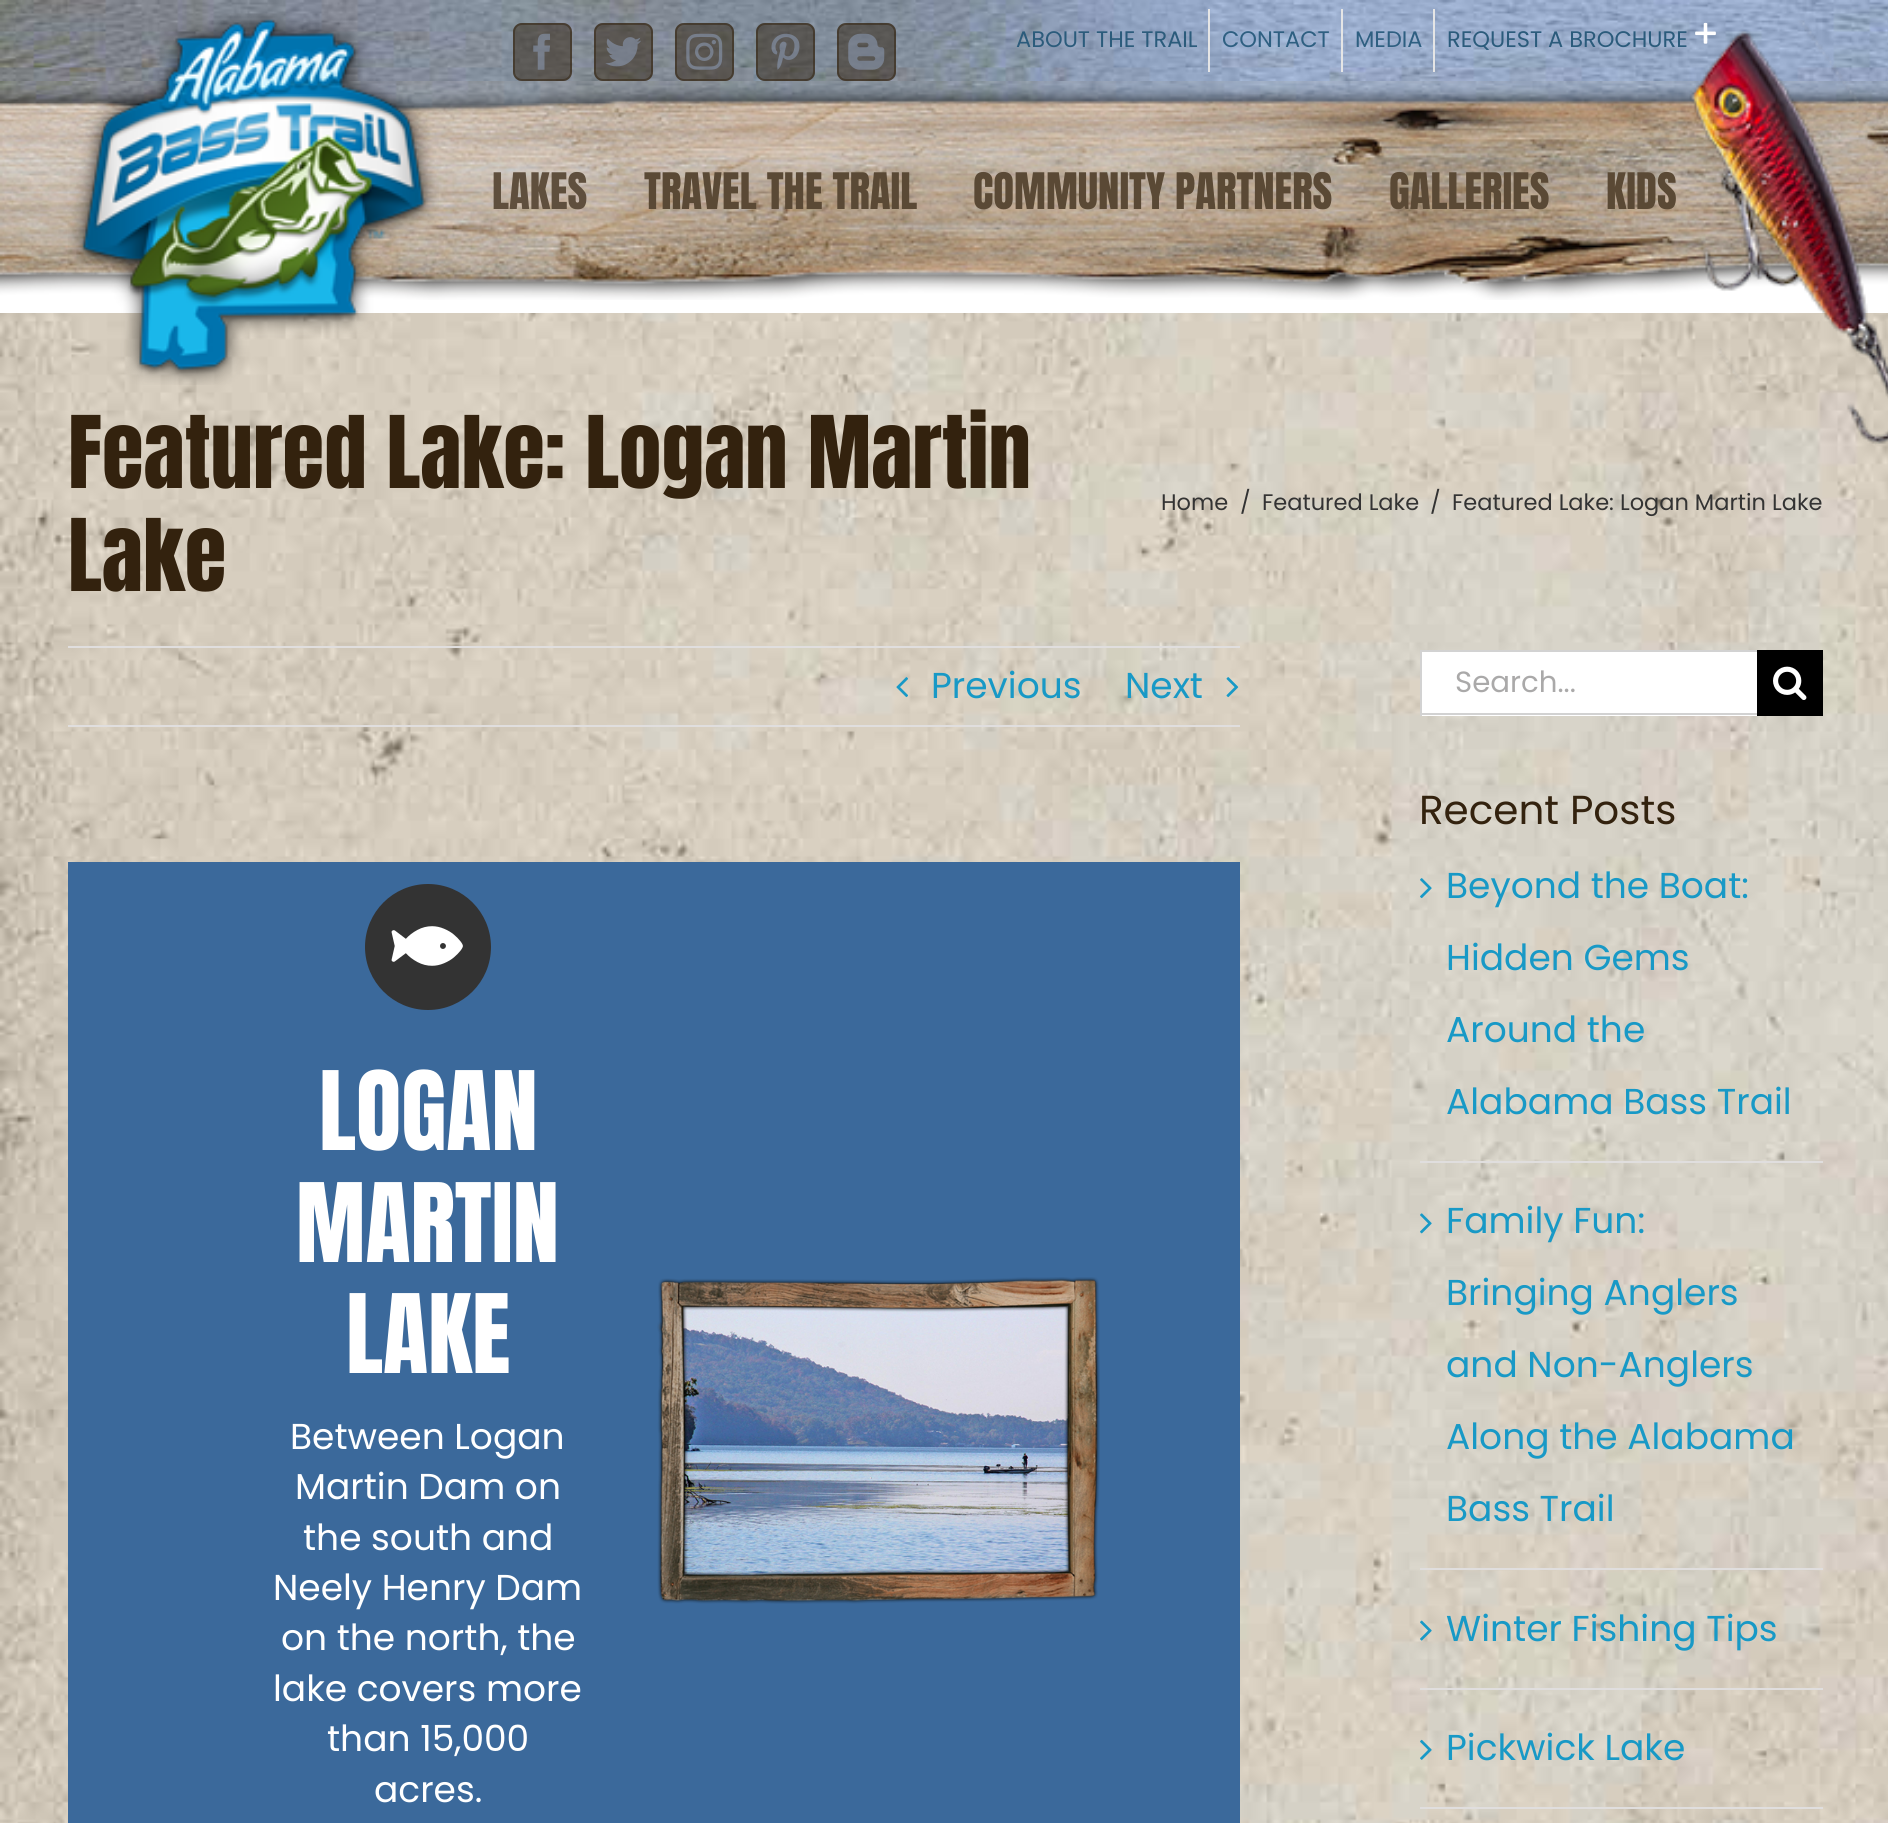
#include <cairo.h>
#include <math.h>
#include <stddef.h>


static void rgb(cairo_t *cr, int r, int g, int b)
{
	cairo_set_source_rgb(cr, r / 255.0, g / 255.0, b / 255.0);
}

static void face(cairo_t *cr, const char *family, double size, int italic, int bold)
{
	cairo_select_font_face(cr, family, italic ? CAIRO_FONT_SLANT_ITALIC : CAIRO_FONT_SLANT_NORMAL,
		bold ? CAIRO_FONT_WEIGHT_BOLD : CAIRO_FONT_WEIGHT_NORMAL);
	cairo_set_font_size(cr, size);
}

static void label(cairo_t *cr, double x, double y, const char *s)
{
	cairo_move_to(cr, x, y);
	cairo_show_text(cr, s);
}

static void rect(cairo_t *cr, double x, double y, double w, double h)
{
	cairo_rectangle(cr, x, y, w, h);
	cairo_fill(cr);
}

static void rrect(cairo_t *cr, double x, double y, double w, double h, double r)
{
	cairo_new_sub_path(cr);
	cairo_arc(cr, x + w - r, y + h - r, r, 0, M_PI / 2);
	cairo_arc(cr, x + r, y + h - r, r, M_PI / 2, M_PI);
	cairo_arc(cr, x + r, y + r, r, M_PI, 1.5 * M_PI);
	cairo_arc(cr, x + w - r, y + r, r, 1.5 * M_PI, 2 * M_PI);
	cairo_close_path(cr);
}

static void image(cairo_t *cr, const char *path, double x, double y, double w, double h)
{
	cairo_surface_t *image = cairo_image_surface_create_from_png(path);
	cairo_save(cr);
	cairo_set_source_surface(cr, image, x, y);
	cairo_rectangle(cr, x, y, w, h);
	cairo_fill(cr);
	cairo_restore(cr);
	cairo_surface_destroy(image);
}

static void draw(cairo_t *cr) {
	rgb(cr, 255, 255, 255);
	cairo_paint(cr);
	image(cr, "image0.png", 0, 313, 1888, 1510);
	image(cr, "image1.png", 0, 0, 1888, 81);
	cairo_set_source_rgba(cr, 0.2, 0.133, 0.055, 0.5);
	rrect(cr, 513, 23, 59, 58, 9);
	cairo_fill(cr);
	rrect(cr, 514, 24, 57, 56, 8);
	cairo_stroke(cr);
	image(cr, "image2.png", 533, 33, 17, 37);
	rrect(cr, 594, 23, 59, 58, 9);
	cairo_fill(cr);
	rrect(cr, 595, 24, 57, 56, 8);
	cairo_stroke(cr);
	image(cr, "image3.png", 605, 37, 36, 30);
	rrect(cr, 675, 23, 59, 58, 9);
	cairo_fill(cr);
	rrect(cr, 676, 24, 57, 56, 8);
	cairo_stroke(cr);
	image(cr, "image4.png", 686, 33, 37, 37);
	rrect(cr, 756, 23, 59, 58, 9);
	cairo_fill(cr);
	rrect(cr, 757, 24, 57, 56, 8);
	cairo_stroke(cr);
	image(cr, "image5.png", 771, 33, 29, 37);
	rrect(cr, 837, 23, 59, 58, 9);
	cairo_fill(cr);
	rrect(cr, 838, 24, 57, 56, 8);
	cairo_stroke(cr);
	image(cr, "image6.png", 848, 33, 37, 37);
	face(cr, "Poppins", 22.5, 0, 0);
	rgb(cr, 43, 91, 123);
	label(cr, 1016, 47, "ABOUT THE TRAIL");
	rgb(cr, 229, 229, 229);
	rect(cr, 1208, 9, 2, 63);
	rgb(cr, 46, 95, 129);
	label(cr, 1222, 47, "CONTACT");
	rgb(cr, 229, 229, 229);
	rect(cr, 1341, 9, 2, 63);
	rgb(cr, 46, 95, 129);
	label(cr, 1355, 47, "MEDIA");
	rgb(cr, 229, 229, 229);
	rect(cr, 1433, 9, 2, 63);
	rgb(cr, 43, 91, 123);
	label(cr, 1447, 47, "REQUEST A BROCHURE");
	image(cr, "image7.png", 0, 81, 1888, 219);
	image(cr, "image8.png", 68, 13, 371, 372);
	face(cr, "Anton", 42.75, 0, 0);
	rgb(cr, 95, 79, 61);
	label(cr, 492, 209, "LAKES");
	rgb(cr, 90, 73, 53);
	label(cr, 644, 209, "TRAVEL THE TRAIL");
	label(cr, 973, 209, "COMMUNITY PARTNERS");
	label(cr, 1389, 209, "GALLERIES");
	label(cr, 1606, 209, "KIDS");
	image(cr, "image9.png", 1689, 20, 199, 425);
	image(cr, "image10.png", 1695, 22, 21, 22);
	face(cr, "Anton", 85.1, 0, 0);
	rgb(cr, 51, 34, 14);
	label(cr, 68, 488, "Featured Lake: Logan Martin");
	label(cr, 68, 591, "Lake");
	face(cr, "Poppins", 22.5, 0, 0);
	rgb(cr, 51, 51, 51);
	label(cr, 1161, 510, "Home");
	label(cr, 1240, 510, "/");
	label(cr, 1262, 510, "Featured Lake");
	label(cr, 1430, 510, "/");
	label(cr, 1452, 510, "Featured Lake: Logan Martin Lake");
	rgb(cr, 224, 222, 222);
	rect(cr, 68, 646, 1172, 2);
	rect(cr, 68, 725, 1172, 2);
	image(cr, "image11.png", 896, 677, 12, 21);
	face(cr, "Poppins", 36, 0, 0);
	rgb(cr, 24, 153, 198);
	label(cr, 931, 698, "Previous");
	label(cr, 1125, 698, "Next");
	image(cr, "image12.png", 1226, 677, 13, 21);
	rgb(cr, 59, 105, 155);
	rect(cr, 68, 862, 1172, 961);
	rgb(cr, 51, 51, 51);
	cairo_arc(cr, 428, 947, 62, 0, 2 * M_PI);
	cairo_fill_preserve(cr);
	cairo_stroke(cr);
	image(cr, "image13.png", 391, 926, 72, 40);
	face(cr, "Anton", 93, 0, 0);
	rgb(cr, 255, 255, 255);
	label(cr, 319, 1150, "LOGAN");
	label(cr, 296, 1262, "MARTIN");
	label(cr, 346, 1373, "LAKE");
	face(cr, "Poppins", 36, 0, 0);
	label(cr, 290, 1449, "Between Logan");
	label(cr, 295, 1499, "Martin Dam on");
	label(cr, 303, 1550, "the south and");
	label(cr, 273, 1600, "Neely Henry Dam");
	label(cr, 281, 1650, "on the north, the");
	label(cr, 273, 1701, "lake covers more");
	label(cr, 327, 1751, "than 15,000");
	label(cr, 374, 1802, "acres.");
	image(cr, "image14.png", 657, 1277, 443, 327);
	rect(cr, 1422, 652, 335, 64);
	rgb(cr, 210, 210, 210);
	rect(cr, 1420, 650, 337, 2);
	rect(cr, 1420, 713, 337, 2);
	rect(cr, 1420, 650, 2, 66);
	face(cr, "Poppins", 29.25, 0, 0);
	rgb(cr, 170, 169, 169);
	label(cr, 1455, 692, "Search...");
	rgb(cr, 0, 0, 0);
	rect(cr, 1757, 650, 66, 66);
	image(cr, "image15.png", 1773, 666, 34, 34);
	face(cr, "Poppins", 40.5, 0, 0);
	rgb(cr, 51, 34, 14);
	label(cr, 1419, 824, "Recent Posts");
	rgb(cr, 224, 222, 222);
	rect(cr, 1420, 1161, 403, 2);
	image(cr, "image16.png", 1420, 878, 12, 21);
	face(cr, "Poppins", 36, 0, 0);
	rgb(cr, 24, 153, 198);
	label(cr, 1446, 898, "Beyond the Boat:");
	label(cr, 1446, 970, "Hidden Gems");
	label(cr, 1446, 1042, "Around the");
	label(cr, 1446, 1114, "Alabama Bass Trail");
	rgb(cr, 224, 222, 222);
	rect(cr, 1420, 1568, 403, 2);
	image(cr, "image17.png", 1420, 1213, 12, 21);
	rgb(cr, 24, 153, 198);
	label(cr, 1446, 1233, "Family Fun:");
	label(cr, 1446, 1305, "Bringing Anglers");
	label(cr, 1446, 1377, "and Non-Anglers");
	label(cr, 1446, 1449, "Along the Alabama");
	label(cr, 1446, 1521, "Bass Trail");
	rgb(cr, 224, 222, 222);
	rect(cr, 1420, 1688, 403, 2);
	image(cr, "image18.png", 1420, 1620, 12, 21);
	rgb(cr, 24, 153, 198);
	label(cr, 1446, 1641, "Winter Fishing Tips");
	rgb(cr, 224, 222, 222);
	rect(cr, 1420, 1807, 403, 2);
	image(cr, "image19.png", 1420, 1739, 12, 21);
	rgb(cr, 24, 153, 198);
	label(cr, 1446, 1760, "Pickwick Lake");
}

int main(void) {
	cairo_surface_t *surface = cairo_image_surface_create(CAIRO_FORMAT_RGB24, 1888, 1823);
	cairo_t *cr = cairo_create(surface);
	cairo_font_options_t *options = cairo_font_options_create();
	cairo_font_options_set_hint_metrics(options, CAIRO_HINT_METRICS_OFF);
	cairo_font_options_set_hint_style(options, CAIRO_HINT_STYLE_NONE);
	cairo_set_font_options(cr, options);
	cairo_set_miter_limit(cr, 4);
	draw(cr);
	cairo_surface_write_to_png(surface, "render.png");
	cairo_font_options_destroy(options);
	cairo_destroy(cr);
	cairo_surface_destroy(surface);
	return 0;
}
